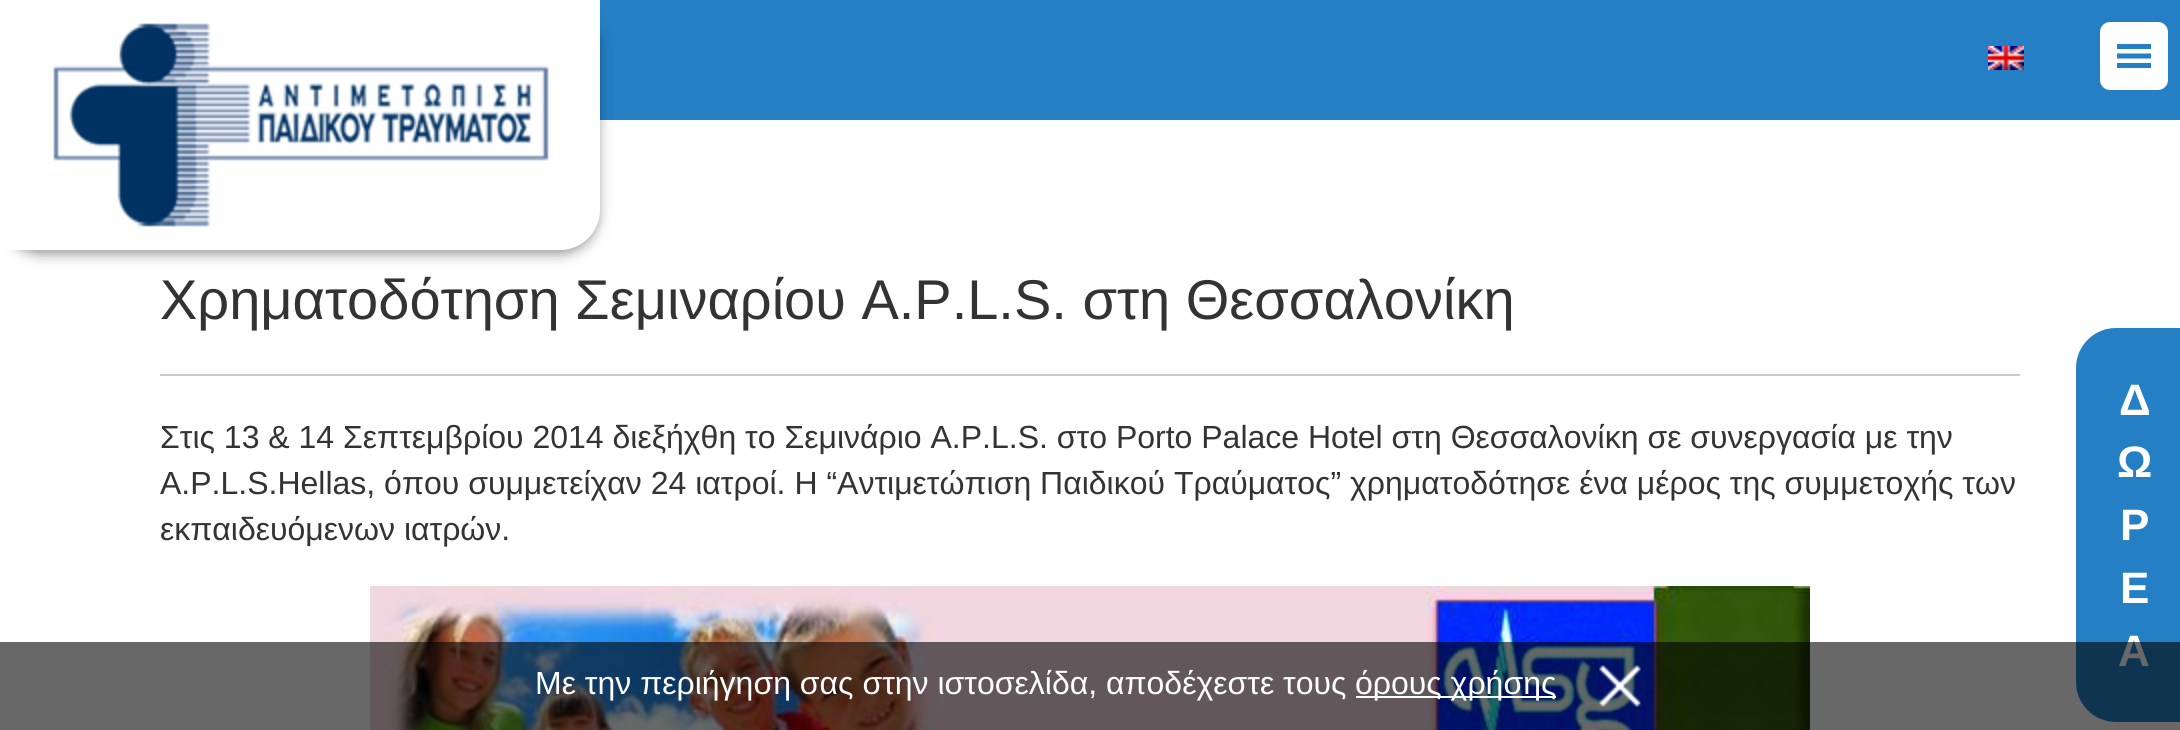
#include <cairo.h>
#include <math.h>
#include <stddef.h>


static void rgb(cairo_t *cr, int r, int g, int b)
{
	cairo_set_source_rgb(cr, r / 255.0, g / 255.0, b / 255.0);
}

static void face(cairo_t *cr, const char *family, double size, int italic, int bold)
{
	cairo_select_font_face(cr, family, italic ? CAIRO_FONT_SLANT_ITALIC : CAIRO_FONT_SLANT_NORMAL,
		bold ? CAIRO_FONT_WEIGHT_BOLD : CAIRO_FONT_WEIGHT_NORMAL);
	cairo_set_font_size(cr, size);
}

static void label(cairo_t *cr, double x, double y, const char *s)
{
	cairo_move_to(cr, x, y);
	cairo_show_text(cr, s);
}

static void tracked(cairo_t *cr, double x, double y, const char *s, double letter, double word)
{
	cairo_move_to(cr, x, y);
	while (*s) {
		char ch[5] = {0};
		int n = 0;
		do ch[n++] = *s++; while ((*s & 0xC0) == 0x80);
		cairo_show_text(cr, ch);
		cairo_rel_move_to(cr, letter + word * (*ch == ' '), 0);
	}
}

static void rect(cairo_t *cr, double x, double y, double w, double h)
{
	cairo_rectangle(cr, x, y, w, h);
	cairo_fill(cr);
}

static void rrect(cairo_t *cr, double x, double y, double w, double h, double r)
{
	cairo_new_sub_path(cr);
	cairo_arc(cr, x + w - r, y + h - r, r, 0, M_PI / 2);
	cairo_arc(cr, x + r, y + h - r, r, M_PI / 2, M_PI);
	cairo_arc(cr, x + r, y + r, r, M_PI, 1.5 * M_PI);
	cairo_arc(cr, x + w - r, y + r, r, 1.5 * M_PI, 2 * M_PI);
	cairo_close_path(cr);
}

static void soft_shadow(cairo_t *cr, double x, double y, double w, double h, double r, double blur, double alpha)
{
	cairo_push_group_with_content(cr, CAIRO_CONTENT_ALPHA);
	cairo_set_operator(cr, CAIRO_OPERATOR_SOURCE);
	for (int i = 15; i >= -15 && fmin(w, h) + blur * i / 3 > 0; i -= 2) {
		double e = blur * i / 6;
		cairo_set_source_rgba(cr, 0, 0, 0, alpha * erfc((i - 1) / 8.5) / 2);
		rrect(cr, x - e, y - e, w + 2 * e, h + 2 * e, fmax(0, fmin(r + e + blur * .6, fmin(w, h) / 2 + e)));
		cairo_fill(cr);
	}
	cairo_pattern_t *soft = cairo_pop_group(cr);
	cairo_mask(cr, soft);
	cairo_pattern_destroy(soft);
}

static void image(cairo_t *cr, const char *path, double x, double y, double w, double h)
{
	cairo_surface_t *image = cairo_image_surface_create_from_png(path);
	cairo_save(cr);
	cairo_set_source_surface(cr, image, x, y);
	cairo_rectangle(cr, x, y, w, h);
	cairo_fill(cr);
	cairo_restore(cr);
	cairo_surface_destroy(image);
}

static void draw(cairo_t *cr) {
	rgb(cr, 255, 255, 255);
	cairo_paint(cr);
	rgb(cr, 36, 127, 197);
	rect(cr, 600, 0, 1580, 120);
	rgb(cr, 0, 0, 0);
	soft_shadow(cr, 2, 6, 596, 246, 38, 4, 0.2);
	soft_shadow(cr, 0, 2, 600, 250, 40, 10, 0.12);
	soft_shadow(cr, 0, 8, 600, 250, 40, 5, 0.14);
	rgb(cr, 255, 255, 255);
	cairo_new_path(cr);
	cairo_move_to(cr, 0, 0);
	cairo_line_to(cr, 600, 0);
	cairo_line_to(cr, 600, 210);
	cairo_curve_to(cr, 600, 232, 582, 250, 560, 250);
	cairo_line_to(cr, 0, 250);
	cairo_close_path(cr);
	cairo_fill(cr);
	image(cr, "image0.png", 53, 23, 496, 204);
	image(cr, "image1.png", 1988, 46, 36, 24);
	rrect(cr, 2100, 22, 68, 68, 10);
	cairo_fill(cr);
	rgb(cr, 36, 127, 197);
	cairo_new_path(cr);
	cairo_move_to(cr, 2117, 68);
	cairo_line_to(cr, 2151, 68);
	cairo_line_to(cr, 2151, 63);
	cairo_line_to(cr, 2117, 63);
	cairo_close_path(cr);
	cairo_move_to(cr, 2117, 44);
	cairo_line_to(cr, 2117, 49);
	cairo_line_to(cr, 2151, 49);
	cairo_line_to(cr, 2151, 44);
	cairo_close_path(cr);
	cairo_move_to(cr, 2117, 58.5);
	cairo_line_to(cr, 2151, 58.5);
	cairo_line_to(cr, 2151, 53.5);
	cairo_line_to(cr, 2117, 53.5);
	cairo_close_path(cr);
	cairo_fill(cr);
	rgb(cr, 202, 202, 202);
	rect(cr, 160, 374, 1860, 2);
	face(cr, "Liberation Sans", 56, 0, 0);
	rgb(cr, 51, 51, 51);
	label(cr, 160, 319, "Χρηματοδότηση Σεμιναρίου A.P.L.S. στη Θεσσαλονίκη");
	face(cr, "Liberation Sans", 32, 0, 0);
	label(cr, 160, 448, "Στις 13 & 14 Σεπτεμβρίου 2014 διεξήχθη το Σεμινάριο A.P.L.S. στο Porto Palace Hotel στη Θεσσαλονίκη σε συνεργασία με την");
	label(cr, 160, 494, "A.P.L.S.Hellas, όπου συμμετείχαν 24 ιατροί. Η “Αντιμετώπιση Παιδικού Τραύματος” χρηματοδότησε ένα μέρος της συμμετοχής των");
	label(cr, 160, 540, "εκπαιδευόμενων ιατρών.");
	image(cr, "image2.png", 370, 586, 1440, 144);
	rgb(cr, 36, 127, 197);
	rrect(cr, 2076, 328, 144, 394, 40);
	cairo_fill(cr);
	face(cr, "Liberation Sans", 44, 0, 1);
	rgb(cr, 255, 255, 255);
	tracked(cr, 2119, 415, "Δ", 8, 0);
	tracked(cr, 2117, 477, "Ω", 8, 0);
	tracked(cr, 2120, 540, "Ρ", 8, 0);
	tracked(cr, 2120, 603, "Ε", 8, 0);
	tracked(cr, 2118, 666, "Α", 8, 0);
	cairo_set_source_rgba(cr, 0, 0, 0, 0.59);
	rect(cr, 0, 642, 2180, 88);
	face(cr, "Liberation Sans", 32, 0, 0);
	rgb(cr, 255, 255, 255);
	label(cr, 535, 694, "Με την περιήγηση σας στην ιστοσελίδα, αποδέχεστε τους");
	rect(cr, 1356, 696, 200, 2);
	label(cr, 1355, 694, "όρους χρήσης");
	image(cr, "image3.png", 1599, 665, 42, 42);
}

int main(void) {
	cairo_surface_t *surface = cairo_image_surface_create(CAIRO_FORMAT_RGB24, 2180, 730);
	cairo_t *cr = cairo_create(surface);
	cairo_font_options_t *options = cairo_font_options_create();
	cairo_font_options_set_hint_metrics(options, CAIRO_HINT_METRICS_OFF);
	cairo_font_options_set_hint_style(options, CAIRO_HINT_STYLE_NONE);
	cairo_set_font_options(cr, options);
	cairo_set_miter_limit(cr, 4);
	draw(cr);
	cairo_surface_write_to_png(surface, "render.png");
	cairo_font_options_destroy(options);
	cairo_destroy(cr);
	cairo_surface_destroy(surface);
	return 0;
}
